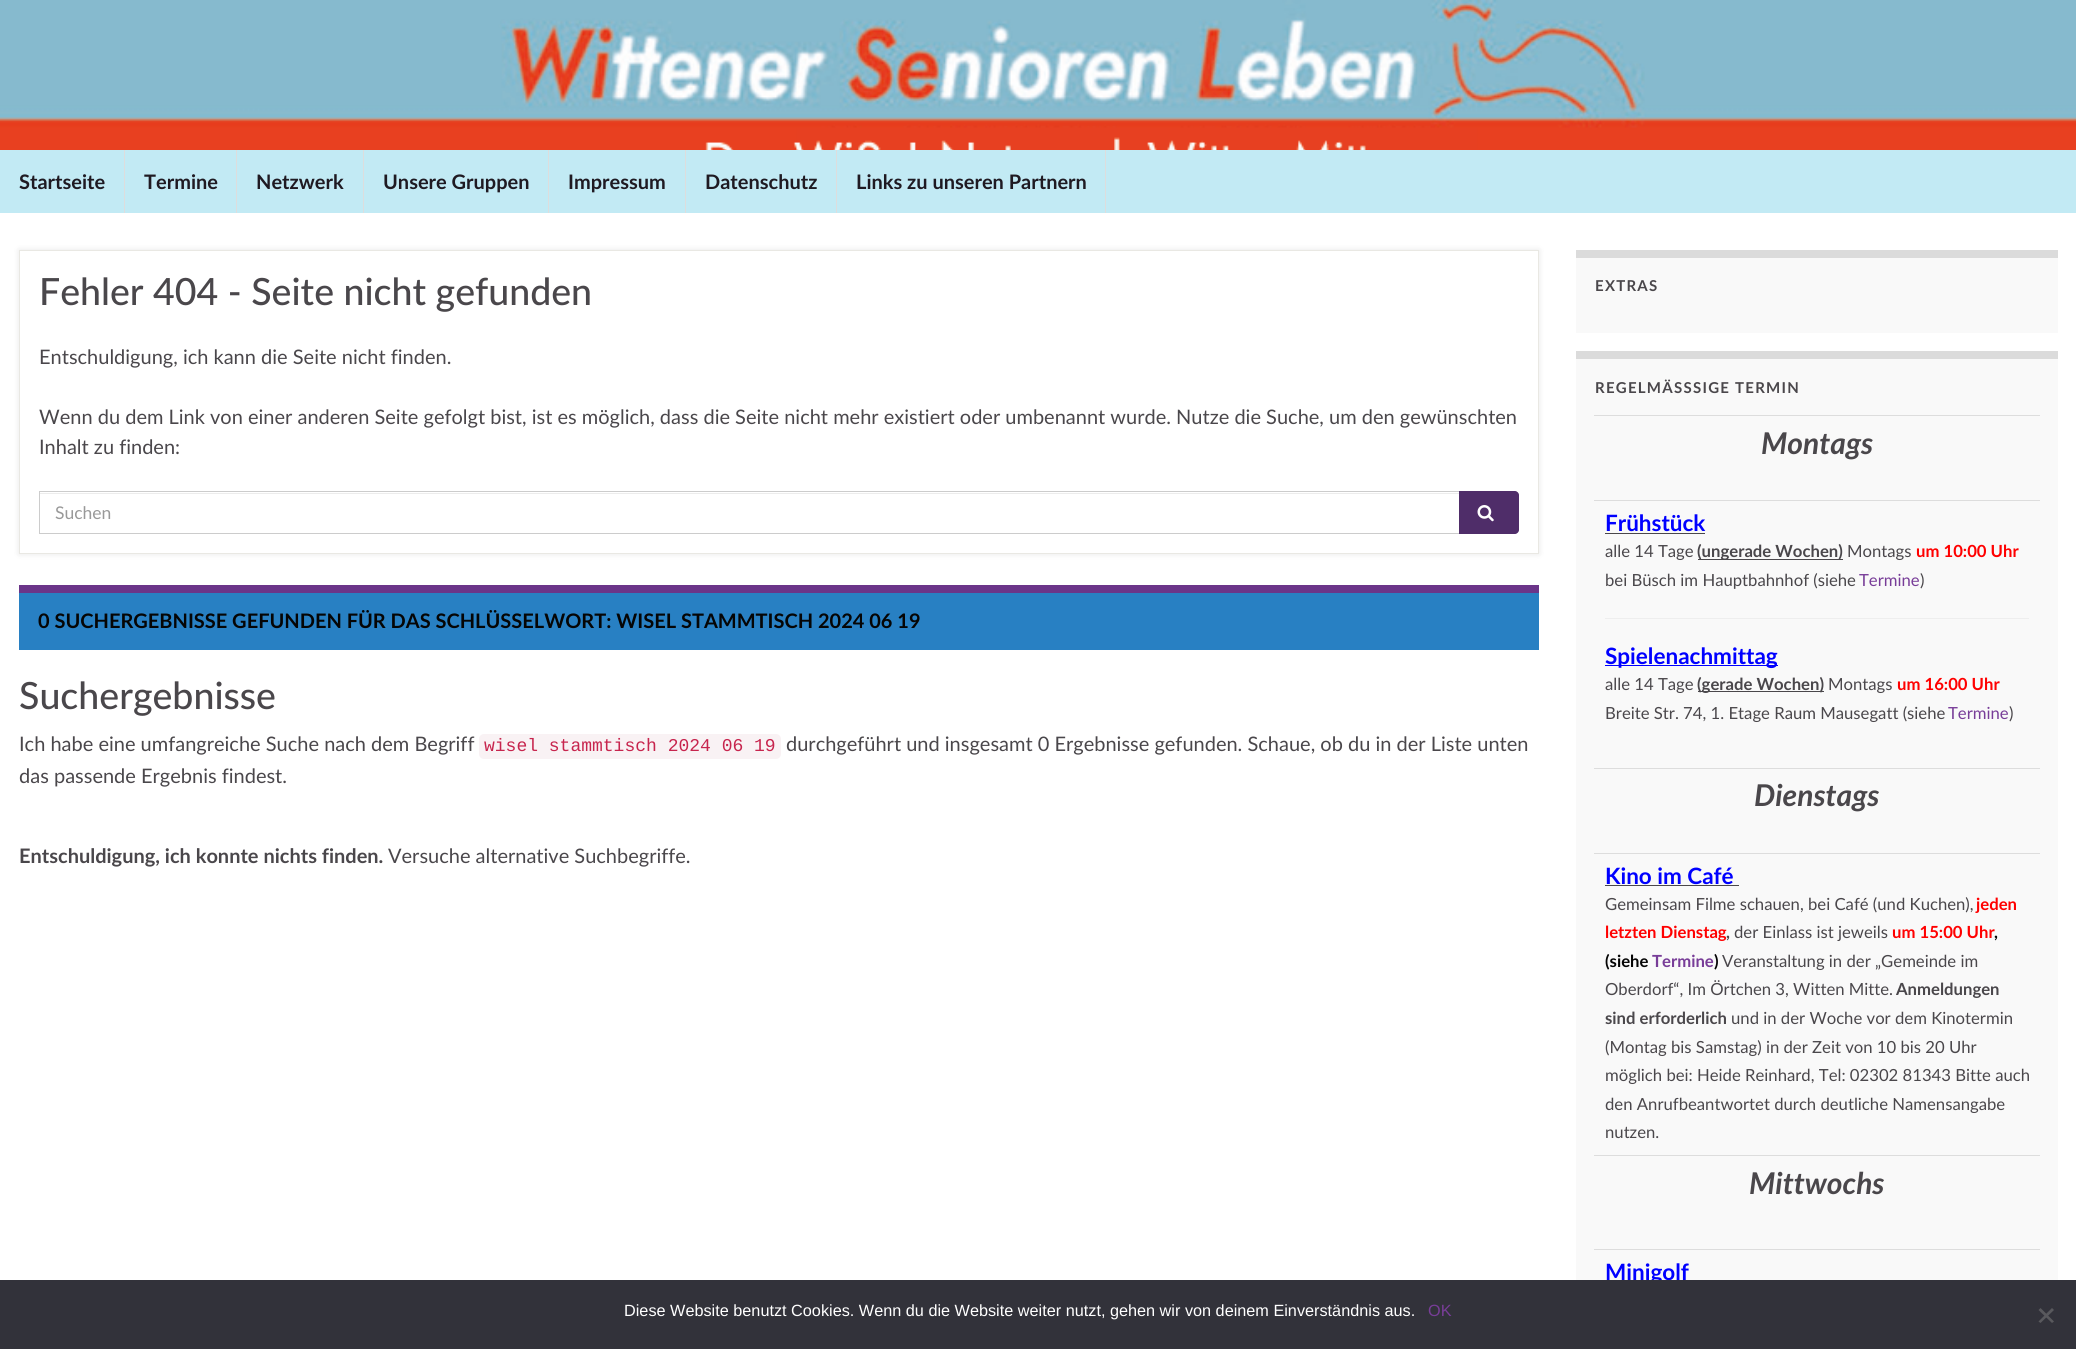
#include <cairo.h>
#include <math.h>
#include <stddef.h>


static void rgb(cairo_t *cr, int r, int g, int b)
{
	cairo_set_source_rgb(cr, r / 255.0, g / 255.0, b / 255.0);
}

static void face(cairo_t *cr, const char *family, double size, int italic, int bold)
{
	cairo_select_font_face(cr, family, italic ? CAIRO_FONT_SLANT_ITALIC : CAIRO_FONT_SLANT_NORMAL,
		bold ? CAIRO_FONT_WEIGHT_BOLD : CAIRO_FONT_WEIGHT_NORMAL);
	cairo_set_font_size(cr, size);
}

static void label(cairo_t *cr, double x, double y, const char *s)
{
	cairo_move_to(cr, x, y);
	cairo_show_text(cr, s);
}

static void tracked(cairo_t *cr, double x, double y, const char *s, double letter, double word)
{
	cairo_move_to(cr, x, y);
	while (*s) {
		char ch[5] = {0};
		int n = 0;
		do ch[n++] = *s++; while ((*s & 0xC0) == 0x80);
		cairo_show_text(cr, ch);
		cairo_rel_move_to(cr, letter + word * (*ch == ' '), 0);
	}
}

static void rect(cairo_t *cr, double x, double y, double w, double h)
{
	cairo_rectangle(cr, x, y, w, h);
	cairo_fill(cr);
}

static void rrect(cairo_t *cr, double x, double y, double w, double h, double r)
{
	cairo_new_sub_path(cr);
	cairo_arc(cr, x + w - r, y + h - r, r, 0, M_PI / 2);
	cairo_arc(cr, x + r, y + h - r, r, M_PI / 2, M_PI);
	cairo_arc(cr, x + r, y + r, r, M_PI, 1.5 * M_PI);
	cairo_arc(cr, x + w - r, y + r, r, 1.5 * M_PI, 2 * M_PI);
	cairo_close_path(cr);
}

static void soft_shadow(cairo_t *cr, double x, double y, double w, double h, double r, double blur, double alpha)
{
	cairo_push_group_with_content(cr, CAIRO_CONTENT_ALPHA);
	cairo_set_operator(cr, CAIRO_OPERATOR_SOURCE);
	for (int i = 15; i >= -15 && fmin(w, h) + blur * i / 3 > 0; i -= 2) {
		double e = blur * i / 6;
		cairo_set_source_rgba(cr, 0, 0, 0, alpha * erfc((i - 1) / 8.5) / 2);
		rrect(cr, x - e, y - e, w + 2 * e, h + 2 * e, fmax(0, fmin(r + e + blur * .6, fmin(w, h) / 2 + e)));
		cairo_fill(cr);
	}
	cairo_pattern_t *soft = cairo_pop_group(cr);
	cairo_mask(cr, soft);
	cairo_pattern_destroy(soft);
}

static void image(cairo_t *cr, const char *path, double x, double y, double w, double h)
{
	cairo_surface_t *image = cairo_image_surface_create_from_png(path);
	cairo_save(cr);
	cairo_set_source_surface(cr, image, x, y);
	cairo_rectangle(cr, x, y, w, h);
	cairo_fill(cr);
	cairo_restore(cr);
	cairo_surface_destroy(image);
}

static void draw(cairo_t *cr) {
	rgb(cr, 255, 255, 255);
	cairo_paint(cr);
	image(cr, "image0.png", 0, 0, 2076, 150);
	rgb(cr, 194, 234, 244);
	rect(cr, 0, 150, 2076, 63);
	rgb(cr, 221, 221, 221);
	rect(cr, 124, 150, 1, 63);
	face(cr, "Lato", 20, 0, 1);
	rgb(cr, 31, 26, 34);
	label(cr, 19, 189, "Startseite");
	rgb(cr, 221, 221, 221);
	rect(cr, 236, 150, 1, 63);
	rgb(cr, 31, 26, 34);
	label(cr, 144, 189, "Termine");
	rgb(cr, 221, 221, 221);
	rect(cr, 363, 150, 1, 63);
	rgb(cr, 31, 26, 34);
	label(cr, 256, 189, "Netzwerk");
	rgb(cr, 221, 221, 221);
	rect(cr, 548, 150, 1, 63);
	rgb(cr, 31, 26, 34);
	label(cr, 383, 189, "Unsere Gruppen");
	rgb(cr, 221, 221, 221);
	rect(cr, 685, 150, 1, 63);
	rgb(cr, 31, 26, 34);
	label(cr, 568, 189, "Impressum");
	rgb(cr, 221, 221, 221);
	rect(cr, 836, 150, 1, 63);
	rgb(cr, 31, 26, 34);
	label(cr, 705, 189, "Datenschutz");
	rgb(cr, 221, 221, 221);
	rect(cr, 1105, 150, 1, 63);
	rgb(cr, 31, 26, 34);
	label(cr, 856, 189, "Links zu unseren Partnern");
	rgb(cr, 0, 0, 0);
	soft_shadow(cr, 19, 250, 1520, 304, 0, 3, 0.1);
	rgb(cr, 255, 255, 255);
	cairo_rectangle(cr, 19.5, 250.5, 1519, 303);
	cairo_fill_preserve(cr);
	rgb(cr, 233, 232, 227);
	cairo_set_line_width(cr, 1);
	cairo_stroke(cr);
	face(cr, "Lato Medium", 37.5, 0, 0);
	rgb(cr, 74, 71, 75);
	label(cr, 39, 305, "Fehler 404 - Seite nicht gefunden");
	face(cr, "Lato", 20, 0, 0);
	label(cr, 39, 364, "Entschuldigung, ich kann die Seite nicht finden.");
	label(cr, 39, 424, "Wenn du dem Link von einer anderen Seite gefolgt bist, ist es möglich, dass die Seite nicht mehr existiert oder umbenannt wurde. Nutze die Suche, um den gewünschten");
	label(cr, 39, 454, "Inhalt zu finden:");
	rgb(cr, 236, 236, 236);
	rect(cr, 40, 493, 1419, 1);
	cairo_rectangle(cr, 39.5, 491.5, 1420, 42);
	rgb(cr, 204, 204, 204);
	cairo_stroke(cr);
	face(cr, "Lato", 17.5, 0, 0);
	rgb(cr, 153, 153, 153);
	label(cr, 55, 519, "Suchen");
	rgb(cr, 79, 45, 105);
	cairo_new_path(cr);
	cairo_move_to(cr, 1459, 491);
	cairo_line_to(cr, 1515, 491);
	cairo_curve_to(cr, 1517, 491, 1519, 493, 1519, 495);
	cairo_line_to(cr, 1519, 530);
	cairo_curve_to(cr, 1519, 532, 1517, 534, 1515, 534);
	cairo_line_to(cr, 1459, 534);
	cairo_close_path(cr);
	cairo_fill(cr);
	image(cr, "image1.png", 1477, 505, 17, 17);
	rgb(cr, 40, 128, 195);
	rect(cr, 19, 593, 1520, 57);
	rgb(cr, 107, 53, 137);
	rect(cr, 19, 585, 1520, 8);
	face(cr, "Lato", 20, 0, 1);
	rgb(cr, 5, 5, 5);
	label(cr, 38, 628, "0 SUCHERGEBNISSE GEFUNDEN FÜR DAS SCHLÜSSELWORT: WISEL STAMMTISCH 2024 06 19");
	face(cr, "Lato Medium", 37.5, 0, 0);
	rgb(cr, 74, 71, 75);
	label(cr, 19, 709, "Suchergebnisse");
	face(cr, "Lato", 20, 0, 0);
	label(cr, 19, 751, "Ich habe eine umfangreiche Suche nach dem Begriff");
	rgb(cr, 249, 242, 244);
	rrect(cr, 479, 734, 302, 25, 5);
	cairo_fill(cr);
	face(cr, "Liberation Mono", 18, 0, 0);
	rgb(cr, 199, 37, 78);
	label(cr, 484, 751, "wisel stammtisch 2024 06 19");
	face(cr, "Lato", 20, 0, 0);
	rgb(cr, 74, 71, 75);
	label(cr, 786, 751, "durchgeführt und insgesamt 0 Ergebnisse gefunden. Schaue, ob du in der Liste unten");
	label(cr, 19, 783, "das passende Ergebnis findest.");
	face(cr, "Lato", 20, 0, 1);
	label(cr, 19, 863, "Entschuldigung, ich konnte nichts finden.");
	face(cr, "Lato", 20, 0, 0);
	label(cr, 388, 863, "Versuche alternative Suchbegriffe.");
	rgb(cr, 249, 249, 249);
	rect(cr, 1576, 258, 482, 75);
	rgb(cr, 219, 219, 219);
	rect(cr, 1576, 250, 482, 8);
	face(cr, "Lato", 15, 0, 1);
	rgb(cr, 74, 71, 75);
	tracked(cr, 1595, 291, "EXTRAS", 1.25, 0);
	rgb(cr, 249, 249, 249);
	rect(cr, 1576, 359, 482, 921);
	rgb(cr, 219, 219, 219);
	rect(cr, 1576, 351, 482, 8);
	rgb(cr, 74, 71, 75);
	tracked(cr, 1595, 393, "REGELMÄSS", 1.25, 0);
	tracked(cr, 1693, 393, "SIGE TERMIN", 1.25, 0);
	rgb(cr, 221, 221, 221);
	rect(cr, 1594, 415, 446, 1);
	face(cr, "Lato", 30, 1, 1);
	rgb(cr, 74, 71, 75);
	label(cr, 1761, 454, "Montags");
	rgb(cr, 221, 221, 221);
	rect(cr, 1594, 500, 446, 1);
	face(cr, "Lato", 22.5, 0, 1);
	rgb(cr, 0, 0, 255);
	label(cr, 1605, 531, "Frühstück");
	rgb(cr, 74, 71, 75);
	rect(cr, 1605, 533, 100, 1);
	face(cr, "Lato", 16.7, 0, 0);
	label(cr, 1605, 557, "alle 14 Tage");
	rect(cr, 1698, 559, 145, 1);
	face(cr, "Lato", 16.7, 0, 1);
	label(cr, 1697, 557, "(ungerade Wochen)");
	face(cr, "Lato", 16.7, 0, 0);
	label(cr, 1847, 557, "Montags");
	face(cr, "Lato", 16.7, 0, 1);
	rgb(cr, 255, 0, 0);
	label(cr, 1916, 557, "um 10:00 Uhr");
	face(cr, "Lato", 16.7, 0, 0);
	rgb(cr, 74, 71, 75);
	label(cr, 1605, 586, "bei Büsch im Hauptbahnhof (siehe");
	rgb(cr, 120, 61, 152);
	label(cr, 1859, 586, "Termine");
	rgb(cr, 74, 71, 75);
	label(cr, 1920, 586, ")");
	rgb(cr, 238, 238, 238);
	rect(cr, 1605, 618, 424, 1);
	rgb(cr, 0, 0, 255);
	rect(cr, 1605, 665, 173, 1);
	face(cr, "Lato", 22.5, 0, 1);
	label(cr, 1605, 664, "Spielenachmittag");
	face(cr, "Lato", 16.7, 0, 0);
	rgb(cr, 74, 71, 75);
	label(cr, 1605, 690, "alle 14 Tage");
	rect(cr, 1698, 691, 126, 1);
	face(cr, "Lato", 16.7, 0, 1);
	label(cr, 1697, 690, "(gerade Wochen)");
	face(cr, "Lato", 16.7, 0, 0);
	label(cr, 1828, 690, "Montags");
	face(cr, "Lato", 16.7, 0, 1);
	rgb(cr, 255, 0, 0);
	label(cr, 1897, 690, "um 16:00 Uhr");
	face(cr, "Lato", 16.7, 0, 0);
	rgb(cr, 74, 71, 75);
	label(cr, 1605, 719, "Breite Str. 74, 1. Etage Raum Mausegatt (siehe");
	rgb(cr, 120, 61, 152);
	label(cr, 1948, 719, "Termine");
	rgb(cr, 74, 71, 75);
	label(cr, 2009, 719, ")");
	rgb(cr, 221, 221, 221);
	rect(cr, 1594, 768, 446, 1);
	face(cr, "Lato", 30, 1, 1);
	rgb(cr, 74, 71, 75);
	label(cr, 1754, 806, "Dienstags");
	rgb(cr, 221, 221, 221);
	rect(cr, 1594, 853, 446, 1);
	face(cr, "Lato", 22.5, 0, 1);
	rgb(cr, 0, 0, 255);
	label(cr, 1605, 884, "Kino im Café");
	rgb(cr, 74, 71, 75);
	rect(cr, 1605, 885, 134, 1);
	face(cr, "Lato", 16.7, 0, 0);
	label(cr, 1605, 910, "Gemeinsam Filme schauen, bei Café (und Kuchen),");
	face(cr, "Lato", 16.7, 0, 1);
	rgb(cr, 255, 0, 0);
	label(cr, 1976, 910, "jeden");
	label(cr, 1605, 938, "letzten Dienstag");
	rgb(cr, 74, 71, 75);
	label(cr, 1726, 938, ",");
	face(cr, "Lato", 16.7, 0, 0);
	label(cr, 1734, 938, "der Einlass ist jeweils");
	face(cr, "Lato", 16.7, 0, 1);
	rgb(cr, 255, 0, 0);
	label(cr, 1892, 938, "um 15:00 Uhr");
	rgb(cr, 5, 5, 5);
	label(cr, 1994, 938, ",");
	label(cr, 1605, 967, "(siehe");
	rgb(cr, 120, 61, 152);
	label(cr, 1652, 967, "Termine");
	rgb(cr, 5, 5, 5);
	label(cr, 1714, 967, ")");
	face(cr, "Lato", 16.7, 0, 0);
	rgb(cr, 74, 71, 75);
	label(cr, 1722, 967, "Veranstaltung in der „Gemeinde im");
	label(cr, 1605, 995, "Oberdorf“, Im Örtchen 3, Witten Mitte.");
	face(cr, "Lato", 16.7, 0, 1);
	label(cr, 1896, 995, "Anmeldungen");
	label(cr, 1605, 1024, "sind erforderlich");
	face(cr, "Lato", 16.7, 0, 0);
	label(cr, 1731, 1024, "und in der Woche vor dem Kinotermin");
	label(cr, 1605, 1053, "(Montag bis Samstag) in der Zeit von 10 bis 20 Uhr");
	label(cr, 1605, 1081, "möglich bei: Heide Reinhard, Tel: 02302 81343 Bitte auch");
	label(cr, 1605, 1110, "den Anrufbeantwortet durch deutliche Namensangabe");
	label(cr, 1605, 1138, "nutzen.");
	rgb(cr, 221, 221, 221);
	rect(cr, 1594, 1155, 446, 1);
	face(cr, "Lato", 30, 1, 1);
	rgb(cr, 74, 71, 75);
	label(cr, 1749, 1194, "Mittwochs");
	rgb(cr, 221, 221, 221);
	rect(cr, 1594, 1249, 446, 1);
	face(cr, "Lato", 22.5, 0, 1);
	rgb(cr, 0, 0, 255);
	label(cr, 1605, 1280, "Minigolf");
	rgb(cr, 50, 50, 58);
	rect(cr, 0, 1280, 2076, 69);
	face(cr, "Liberation Sans", 16.25, 0, 0);
	rgb(cr, 255, 255, 255);
	label(cr, 624, 1316, "Diese Website benutzt Cookies. Wenn du die Website weiter nutzt, gehen wir von deinem Einverständnis aus.");
	rgb(cr, 120, 61, 152);
	label(cr, 1428, 1316, "OK");
	rgb(cr, 89, 89, 93);
	cairo_new_path(cr);
	cairo_move_to(cr, 2052, 1308);
	cairo_line_to(cr, 2054, 1310);
	cairo_line_to(cr, 2040.5, 1323);
	cairo_line_to(cr, 2038.5, 1321.5);
	cairo_close_path(cr);
	cairo_fill(cr);
	cairo_new_path(cr);
	cairo_move_to(cr, 2038.5, 1310);
	cairo_line_to(cr, 2040.5, 1308);
	cairo_line_to(cr, 2054, 1321.5);
	cairo_line_to(cr, 2052, 1323);
	cairo_close_path(cr);
	cairo_fill(cr);
}

int main(void) {
	cairo_surface_t *surface = cairo_image_surface_create(CAIRO_FORMAT_RGB24, 2076, 1349);
	cairo_t *cr = cairo_create(surface);
	cairo_font_options_t *options = cairo_font_options_create();
	cairo_font_options_set_hint_metrics(options, CAIRO_HINT_METRICS_OFF);
	cairo_font_options_set_hint_style(options, CAIRO_HINT_STYLE_NONE);
	cairo_set_font_options(cr, options);
	cairo_set_miter_limit(cr, 4);
	draw(cr);
	cairo_surface_write_to_png(surface, "render.png");
	cairo_font_options_destroy(options);
	cairo_destroy(cr);
	cairo_surface_destroy(surface);
	return 0;
}
